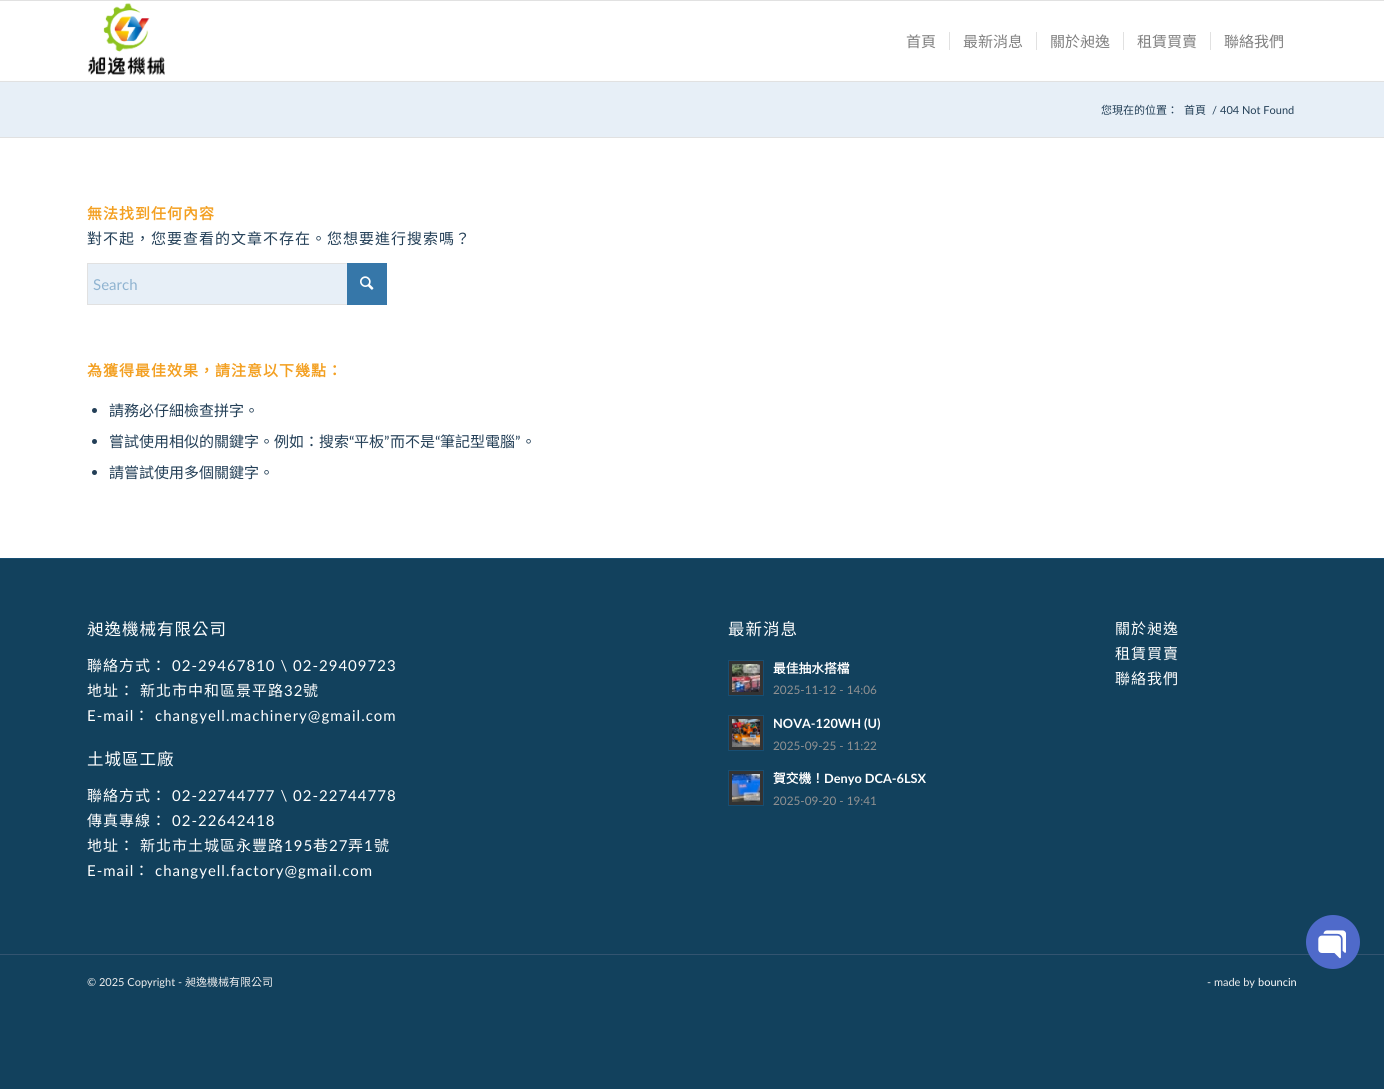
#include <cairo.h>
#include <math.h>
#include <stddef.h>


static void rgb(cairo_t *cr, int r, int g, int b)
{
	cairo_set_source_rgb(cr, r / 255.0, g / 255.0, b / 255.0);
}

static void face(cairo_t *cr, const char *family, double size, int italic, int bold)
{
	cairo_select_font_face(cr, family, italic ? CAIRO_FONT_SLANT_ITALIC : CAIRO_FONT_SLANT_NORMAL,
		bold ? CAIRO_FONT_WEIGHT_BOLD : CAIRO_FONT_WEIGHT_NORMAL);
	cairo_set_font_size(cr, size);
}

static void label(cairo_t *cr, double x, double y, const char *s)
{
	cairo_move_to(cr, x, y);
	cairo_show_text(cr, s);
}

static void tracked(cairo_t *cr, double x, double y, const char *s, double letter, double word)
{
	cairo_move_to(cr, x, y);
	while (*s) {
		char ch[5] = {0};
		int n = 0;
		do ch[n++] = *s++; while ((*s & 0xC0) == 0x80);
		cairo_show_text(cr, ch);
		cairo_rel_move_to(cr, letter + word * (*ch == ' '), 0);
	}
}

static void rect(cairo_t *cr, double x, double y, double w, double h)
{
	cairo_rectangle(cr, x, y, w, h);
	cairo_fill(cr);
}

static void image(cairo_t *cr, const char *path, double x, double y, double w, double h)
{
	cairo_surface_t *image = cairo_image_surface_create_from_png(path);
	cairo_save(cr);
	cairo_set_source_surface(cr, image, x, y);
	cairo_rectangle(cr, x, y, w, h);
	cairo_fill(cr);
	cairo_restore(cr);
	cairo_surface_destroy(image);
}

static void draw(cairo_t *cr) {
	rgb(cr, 18, 65, 93);
	cairo_paint(cr);
	rgb(cr, 255, 255, 255);
	rect(cr, 0, 138, 1384, 420);
	rect(cr, 0, 1, 1384, 79);
	rgb(cr, 225, 225, 225);
	rect(cr, 0, 0, 1384, 1);
	rect(cr, 0, 81, 1384, 1);
	image(cr, "image0.png", 88, 3, 77, 72);
	face(cr, "Noto Sans CJK TC", 15, 0, 0);
	rgb(cr, 128, 128, 128);
	label(cr, 906, 47, "首頁");
	label(cr, 963, 47, "最新消息");
	rgb(cr, 225, 225, 225);
	rect(cr, 949, 32, 1, 18);
	rgb(cr, 128, 128, 128);
	label(cr, 1050, 47, "關於昶逸");
	rgb(cr, 225, 225, 225);
	rect(cr, 1036, 32, 1, 18);
	rgb(cr, 128, 128, 128);
	label(cr, 1137, 47, "租賃買賣");
	rgb(cr, 225, 225, 225);
	rect(cr, 1123, 32, 1, 18);
	rgb(cr, 128, 128, 128);
	label(cr, 1224, 47, "聯絡我們");
	rgb(cr, 225, 225, 225);
	rect(cr, 1210, 32, 1, 18);
	rgb(cr, 231, 239, 247);
	rect(cr, 0, 82, 1384, 55);
	rgb(cr, 254, 254, 254);
	rect(cr, 0, 80, 1384, 1);
	face(cr, "Noto Sans CJK TC", 11, 0, 0);
	rgb(cr, 35, 63, 87);
	label(cr, 1101, 114, "您現在的位置：");
	label(cr, 1184, 114, "首頁");
	face(cr, "Lato", 11, 0, 0);
	label(cr, 1212, 114, "/");
	label(cr, 1220, 114, "404 Not Found");
	rgb(cr, 225, 225, 225);
	rect(cr, 0, 137, 1384, 1);
	face(cr, "Noto Sans CJK TC", 15, 0, 1);
	rgb(cr, 243, 160, 34);
	tracked(cr, 87, 219, "無法找到任何內容", 1, 0);
	face(cr, "Noto Sans CJK TC", 15, 0, 0);
	rgb(cr, 35, 63, 87);
	tracked(cr, 87, 244, "對不起，您要查看的文章不存在。您想要進行搜索嗎？", 1, 0);
	rgb(cr, 231, 239, 247);
	rect(cr, 88, 264, 259, 40);
	cairo_rectangle(cr, 87.5, 263.5, 299, 41);
	rgb(cr, 225, 225, 225);
	cairo_set_line_width(cr, 1);
	cairo_stroke(cr);
	face(cr, "Lato", 15, 0, 0);
	rgb(cr, 143, 179, 208);
	label(cr, 93, 290, "Search");
	rgb(cr, 54, 119, 169);
	rect(cr, 347, 263, 40, 42);
	image(cr, "image1.png", 360, 276, 14, 14);
	face(cr, "Noto Sans CJK TC", 15, 0, 1);
	rgb(cr, 243, 160, 34);
	tracked(cr, 87, 376, "為獲得最佳效果，請注意以下幾點：", 1, 0);
	rgb(cr, 35, 63, 87);
	cairo_new_path(cr);
	cairo_arc(cr, 94.5, 410.5, 2.5, 0, 2 * M_PI);
	cairo_fill(cr);
	face(cr, "Noto Sans CJK TC", 15, 0, 0);
	label(cr, 109, 416, "請務必仔細檢查拼字。");
	label(cr, 109, 447, "嘗試使用相似的關鍵字。例如：搜索");
	face(cr, "Lato", 15, 0, 0);
	label(cr, 349, 447, "“");
	face(cr, "Noto Sans CJK TC", 15, 0, 0);
	label(cr, 354, 447, "平板");
	face(cr, "Lato", 15, 0, 0);
	label(cr, 384, 447, "”");
	face(cr, "Noto Sans CJK TC", 15, 0, 0);
	label(cr, 390, 447, "而不是");
	face(cr, "Lato", 15, 0, 0);
	label(cr, 435, 447, "“");
	face(cr, "Noto Sans CJK TC", 15, 0, 0);
	label(cr, 440, 447, "筆記型電腦");
	face(cr, "Lato", 15, 0, 0);
	label(cr, 515, 447, "”");
	cairo_new_path(cr);
	cairo_arc(cr, 94.5, 441.5, 2.5, 0, 2 * M_PI);
	cairo_fill(cr);
	face(cr, "Noto Sans CJK TC", 15, 0, 0);
	label(cr, 521, 447, "。");
	cairo_new_path(cr);
	cairo_arc(cr, 94.5, 472.5, 2.5, 0, 2 * M_PI);
	cairo_fill(cr);
	label(cr, 109, 478, "請嘗試使用多個關鍵字。");
	rgb(cr, 23, 78, 115);
	rect(cr, 0, 558, 1384, 1);
	face(cr, "Noto Sans CJK TC", 16.5, 0, 0);
	rgb(cr, 255, 255, 255);
	tracked(cr, 87, 635, "昶逸機械有限公司", 1, 0);
	face(cr, "Noto Sans CJK TC", 15, 0, 0);
	tracked(cr, 87, 671, "聯絡方式：", 1, 0);
	face(cr, "Lato", 15, 0, 0);
	tracked(cr, 172, 671, "02-29467810 \\ 02-29409723", 1, 0);
	face(cr, "Noto Sans CJK TC", 15, 0, 0);
	tracked(cr, 87, 696, "地址：", 1, 0);
	tracked(cr, 140, 696, "新北市中和區景平路", 1, 0);
	face(cr, "Lato", 15, 0, 0);
	tracked(cr, 284, 696, "32", 1, 0);
	face(cr, "Noto Sans CJK TC", 15, 0, 0);
	tracked(cr, 303, 696, "號", 1, 0);
	face(cr, "Lato", 15, 0, 0);
	tracked(cr, 87, 721, "E-mail", 1, 0);
	face(cr, "Noto Sans CJK TC", 15, 0, 0);
	tracked(cr, 134, 721, "：", 1, 0);
	face(cr, "Lato", 15, 0, 0);
	tracked(cr, 155, 721, "changyell.machinery@gmail.com", 1, 0);
	face(cr, "Noto Sans CJK TC", 16.5, 0, 0);
	tracked(cr, 87, 765, "土城區工廠", 1, 0);
	face(cr, "Noto Sans CJK TC", 15, 0, 0);
	tracked(cr, 87, 801, "聯絡方式：", 1, 0);
	face(cr, "Lato", 15, 0, 0);
	tracked(cr, 172, 801, "02-22744777 \\ 02-22744778", 1, 0);
	face(cr, "Noto Sans CJK TC", 15, 0, 0);
	tracked(cr, 87, 826, "傳真專線：", 1, 0);
	face(cr, "Lato", 15, 0, 0);
	tracked(cr, 172, 826, "02-22642418", 1, 0);
	face(cr, "Noto Sans CJK TC", 15, 0, 0);
	tracked(cr, 87, 851, "地址：", 1, 0);
	tracked(cr, 140, 851, "新北市土城區永豐路", 1, 0);
	face(cr, "Lato", 15, 0, 0);
	tracked(cr, 284, 851, "195", 1, 0);
	face(cr, "Noto Sans CJK TC", 15, 0, 0);
	tracked(cr, 313, 851, "巷", 1, 0);
	face(cr, "Lato", 15, 0, 0);
	tracked(cr, 329, 851, "27", 1, 0);
	face(cr, "Noto Sans CJK TC", 15, 0, 0);
	tracked(cr, 348, 851, "弄", 1, 0);
	face(cr, "Lato", 15, 0, 0);
	tracked(cr, 364, 851, "1", 1, 0);
	face(cr, "Noto Sans CJK TC", 15, 0, 0);
	tracked(cr, 374, 851, "號", 1, 0);
	face(cr, "Lato", 15, 0, 0);
	tracked(cr, 87, 876, "E-mail", 1, 0);
	face(cr, "Noto Sans CJK TC", 15, 0, 0);
	tracked(cr, 134, 876, "：", 1, 0);
	face(cr, "Lato", 15, 0, 0);
	tracked(cr, 155, 876, "changyell.factory@gmail.com", 1, 0);
	face(cr, "Noto Sans CJK TC", 16.5, 0, 0);
	tracked(cr, 728, 635, "最新消息", 1, 0);
	rgb(cr, 51, 51, 51);
	cairo_rectangle(cr, 728.5, 660.5, 35, 35);
	cairo_fill_preserve(cr);
	rgb(cr, 23, 78, 115);
	cairo_stroke(cr);
	image(cr, "image2.png", 732, 664, 28, 28);
	face(cr, "Noto Sans CJK TC", 12.75, 0, 1);
	rgb(cr, 255, 255, 255);
	label(cr, 773, 673, "最佳抽水搭檔");
	face(cr, "Lato", 11.75, 0, 0);
	rgb(cr, 145, 145, 145);
	label(cr, 773, 694, "2025-11-12 - 14:06");
	rgb(cr, 51, 51, 51);
	cairo_rectangle(cr, 728.5, 715.5, 35, 35);
	cairo_fill_preserve(cr);
	rgb(cr, 23, 78, 115);
	cairo_stroke(cr);
	image(cr, "image3.png", 732, 719, 28, 28);
	face(cr, "Lato", 12.75, 0, 1);
	rgb(cr, 255, 255, 255);
	label(cr, 773, 728, "NOVA-120WH (U)");
	face(cr, "Lato", 11.75, 0, 0);
	rgb(cr, 145, 145, 145);
	label(cr, 773, 750, "2025-09-25 - 11:22");
	rgb(cr, 51, 51, 51);
	cairo_rectangle(cr, 728.5, 770.5, 35, 35);
	cairo_fill_preserve(cr);
	rgb(cr, 23, 78, 115);
	cairo_stroke(cr);
	image(cr, "image4.png", 732, 774, 28, 28);
	face(cr, "Noto Sans CJK TC", 12.75, 0, 1);
	rgb(cr, 255, 255, 255);
	label(cr, 773, 783, "賀交機！");
	face(cr, "Lato", 12.75, 0, 1);
	label(cr, 824, 783, "Denyo DCA-6LSX");
	face(cr, "Lato", 11.75, 0, 0);
	rgb(cr, 145, 145, 145);
	label(cr, 773, 805, "2025-09-20 - 19:41");
	face(cr, "Noto Sans CJK TC", 15, 0, 0);
	rgb(cr, 255, 255, 255);
	tracked(cr, 1115, 634, "關於昶逸", 1, 0);
	tracked(cr, 1115, 659, "租賃買賣", 1, 0);
	tracked(cr, 1115, 684, "聯絡我們", 1, 0);
	rgb(cr, 51, 84, 112);
	rect(cr, 0, 954, 1384, 1);
	face(cr, "Lato", 11, 0, 0);
	rgb(cr, 238, 238, 238);
	label(cr, 87, 986, "© 2025 Copyright -");
	face(cr, "Noto Sans CJK TC", 11, 0, 0);
	label(cr, 185, 986, "昶逸機械有限公司");
	face(cr, "Lato", 11, 0, 0);
	label(cr, 1207, 986, "- made by");
	rgb(cr, 255, 255, 255);
	label(cr, 1258, 986, "bouncin");
	image(cr, "image5.png", 1306, 915, 54, 54);
}

int main(void) {
	cairo_surface_t *surface = cairo_image_surface_create(CAIRO_FORMAT_RGB24, 1384, 1089);
	cairo_t *cr = cairo_create(surface);
	cairo_font_options_t *options = cairo_font_options_create();
	cairo_font_options_set_hint_metrics(options, CAIRO_HINT_METRICS_OFF);
	cairo_font_options_set_hint_style(options, CAIRO_HINT_STYLE_NONE);
	cairo_set_font_options(cr, options);
	cairo_set_miter_limit(cr, 4);
	draw(cr);
	cairo_surface_write_to_png(surface, "render.png");
	cairo_font_options_destroy(options);
	cairo_destroy(cr);
	cairo_surface_destroy(surface);
	return 0;
}
